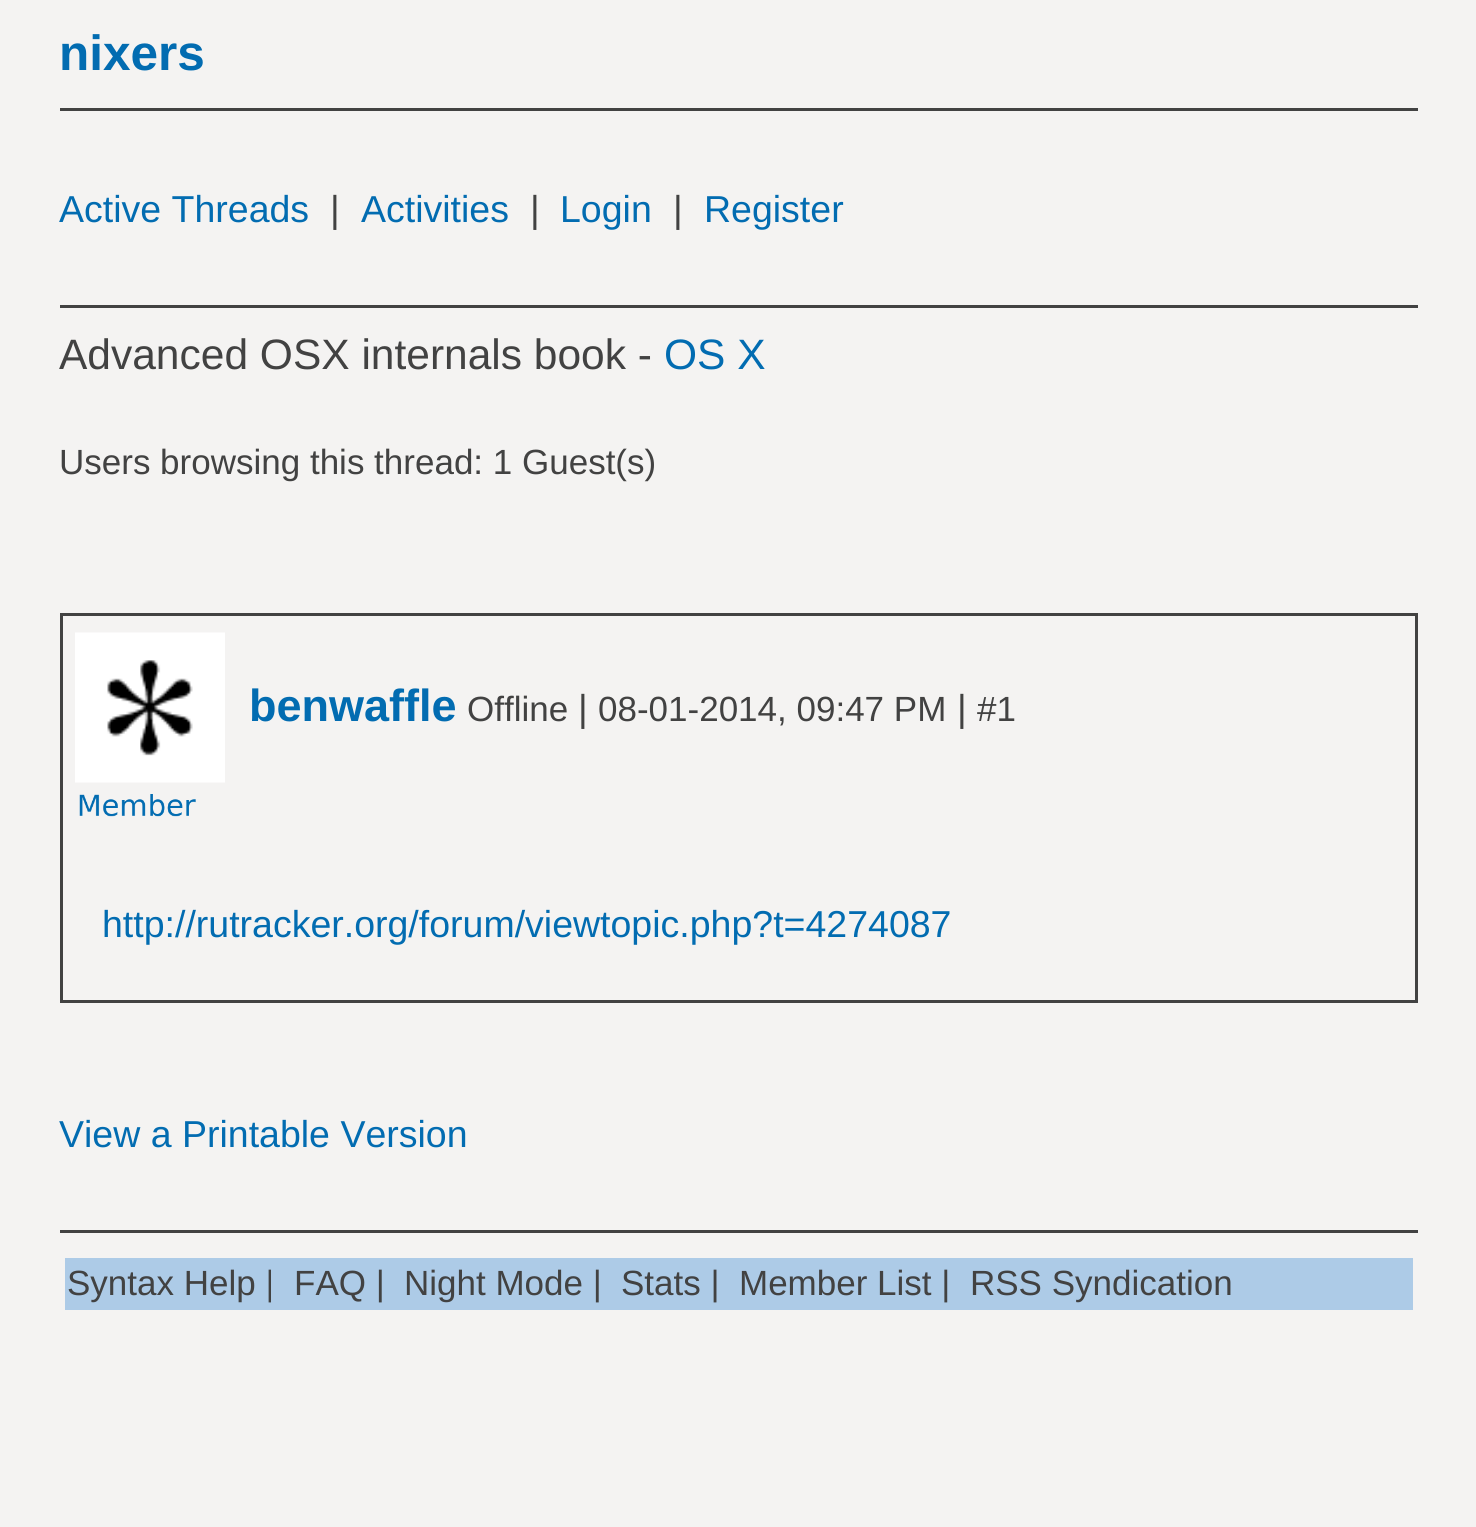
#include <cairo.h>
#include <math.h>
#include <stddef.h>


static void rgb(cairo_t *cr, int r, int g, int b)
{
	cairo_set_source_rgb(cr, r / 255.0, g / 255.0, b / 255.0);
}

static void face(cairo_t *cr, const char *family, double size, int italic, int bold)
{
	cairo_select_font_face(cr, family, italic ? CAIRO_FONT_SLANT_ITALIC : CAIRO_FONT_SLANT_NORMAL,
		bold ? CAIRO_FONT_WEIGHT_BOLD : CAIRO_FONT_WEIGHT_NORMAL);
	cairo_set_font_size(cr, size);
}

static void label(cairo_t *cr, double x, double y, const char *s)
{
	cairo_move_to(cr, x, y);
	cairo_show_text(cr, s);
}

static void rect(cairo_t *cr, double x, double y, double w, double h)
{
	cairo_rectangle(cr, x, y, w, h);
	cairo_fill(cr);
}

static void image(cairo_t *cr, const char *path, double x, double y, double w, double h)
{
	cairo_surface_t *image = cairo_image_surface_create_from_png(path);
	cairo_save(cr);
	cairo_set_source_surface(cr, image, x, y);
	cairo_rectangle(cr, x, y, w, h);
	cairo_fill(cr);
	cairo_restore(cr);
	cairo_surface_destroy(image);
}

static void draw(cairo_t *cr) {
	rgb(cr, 244, 243, 242);
	cairo_paint(cr);
	face(cr, "Liberation Sans", 49.5, 0, 1);
	rgb(cr, 2, 108, 177);
	label(cr, 59, 70, "nixers");
	rgb(cr, 66, 66, 66);
	rect(cr, 60, 108, 1358, 3);
	face(cr, "Liberation Sans", 37.5, 0, 0);
	rgb(cr, 2, 108, 177);
	label(cr, 59, 222, "Active Threads");
	rgb(cr, 66, 66, 66);
	label(cr, 330, 222, "|");
	rgb(cr, 2, 108, 177);
	label(cr, 361, 222, "Activities");
	rgb(cr, 66, 66, 66);
	label(cr, 530, 222, "|");
	rgb(cr, 2, 108, 177);
	label(cr, 560, 222, "Login");
	rgb(cr, 66, 66, 66);
	label(cr, 673, 222, "|");
	rgb(cr, 2, 108, 177);
	label(cr, 704, 222, "Register");
	rgb(cr, 66, 66, 66);
	rect(cr, 60, 305, 1358, 3);
	face(cr, "Liberation Sans", 42.5, 0, 0);
	label(cr, 59, 369, "Advanced OSX internals book -");
	rgb(cr, 2, 108, 177);
	label(cr, 664, 369, "OS X");
	face(cr, "Liberation Sans", 35, 0, 0);
	rgb(cr, 66, 66, 66);
	label(cr, 59, 474, "Users browsing this thread: 1 Guest(s)");
	cairo_rectangle(cr, 61.5, 614.5, 1355, 387);
	cairo_set_line_width(cr, 3);
	cairo_stroke(cr);
	image(cr, "image0.png", 75, 632, 150, 151);
	face(cr, "Liberation Sans", 45, 0, 1);
	rgb(cr, 2, 108, 177);
	label(cr, 249, 721, "benwaffle");
	face(cr, "Liberation Sans", 35, 0, 0);
	rgb(cr, 66, 66, 66);
	label(cr, 467, 721, "Offline");
	face(cr, "Liberation Sans", 37.5, 0, 0);
	label(cr, 578, 721, "|");
	face(cr, "Liberation Sans", 35, 0, 0);
	label(cr, 598, 721, "08-01-2014, 09:47 PM");
	face(cr, "Liberation Sans", 37.5, 0, 0);
	label(cr, 957, 721, "|");
	face(cr, "Liberation Sans", 35, 0, 0);
	label(cr, 977, 721, "#1");
	image(cr, "image1.png", 79, 794, 117, 23);
	face(cr, "Liberation Sans", 37.5, 0, 0);
	rgb(cr, 2, 108, 177);
	label(cr, 102, 937, "http://rutracker.org/forum/viewtopic.php?t=4274087");
	label(cr, 59, 1147, "View a Printable Version");
	rgb(cr, 66, 66, 66);
	rect(cr, 60, 1230, 1358, 3);
	rgb(cr, 173, 203, 231);
	rect(cr, 65, 1258, 1348, 52);
	face(cr, "Liberation Sans", 35, 0, 0);
	rgb(cr, 66, 66, 66);
	label(cr, 67, 1295, "Syntax Help |");
	label(cr, 294, 1295, "FAQ |");
	label(cr, 404, 1295, "Night Mode |");
	label(cr, 621, 1295, "Stats |");
	label(cr, 739, 1295, "Member List |");
	label(cr, 970, 1295, "RSS Syndication");
}

int main(void) {
	cairo_surface_t *surface = cairo_image_surface_create(CAIRO_FORMAT_RGB24, 1476, 1527);
	cairo_t *cr = cairo_create(surface);
	cairo_font_options_t *options = cairo_font_options_create();
	cairo_font_options_set_hint_metrics(options, CAIRO_HINT_METRICS_OFF);
	cairo_font_options_set_hint_style(options, CAIRO_HINT_STYLE_NONE);
	cairo_set_font_options(cr, options);
	cairo_set_miter_limit(cr, 4);
	draw(cr);
	cairo_surface_write_to_png(surface, "render.png");
	cairo_font_options_destroy(options);
	cairo_destroy(cr);
	cairo_surface_destroy(surface);
	return 0;
}
